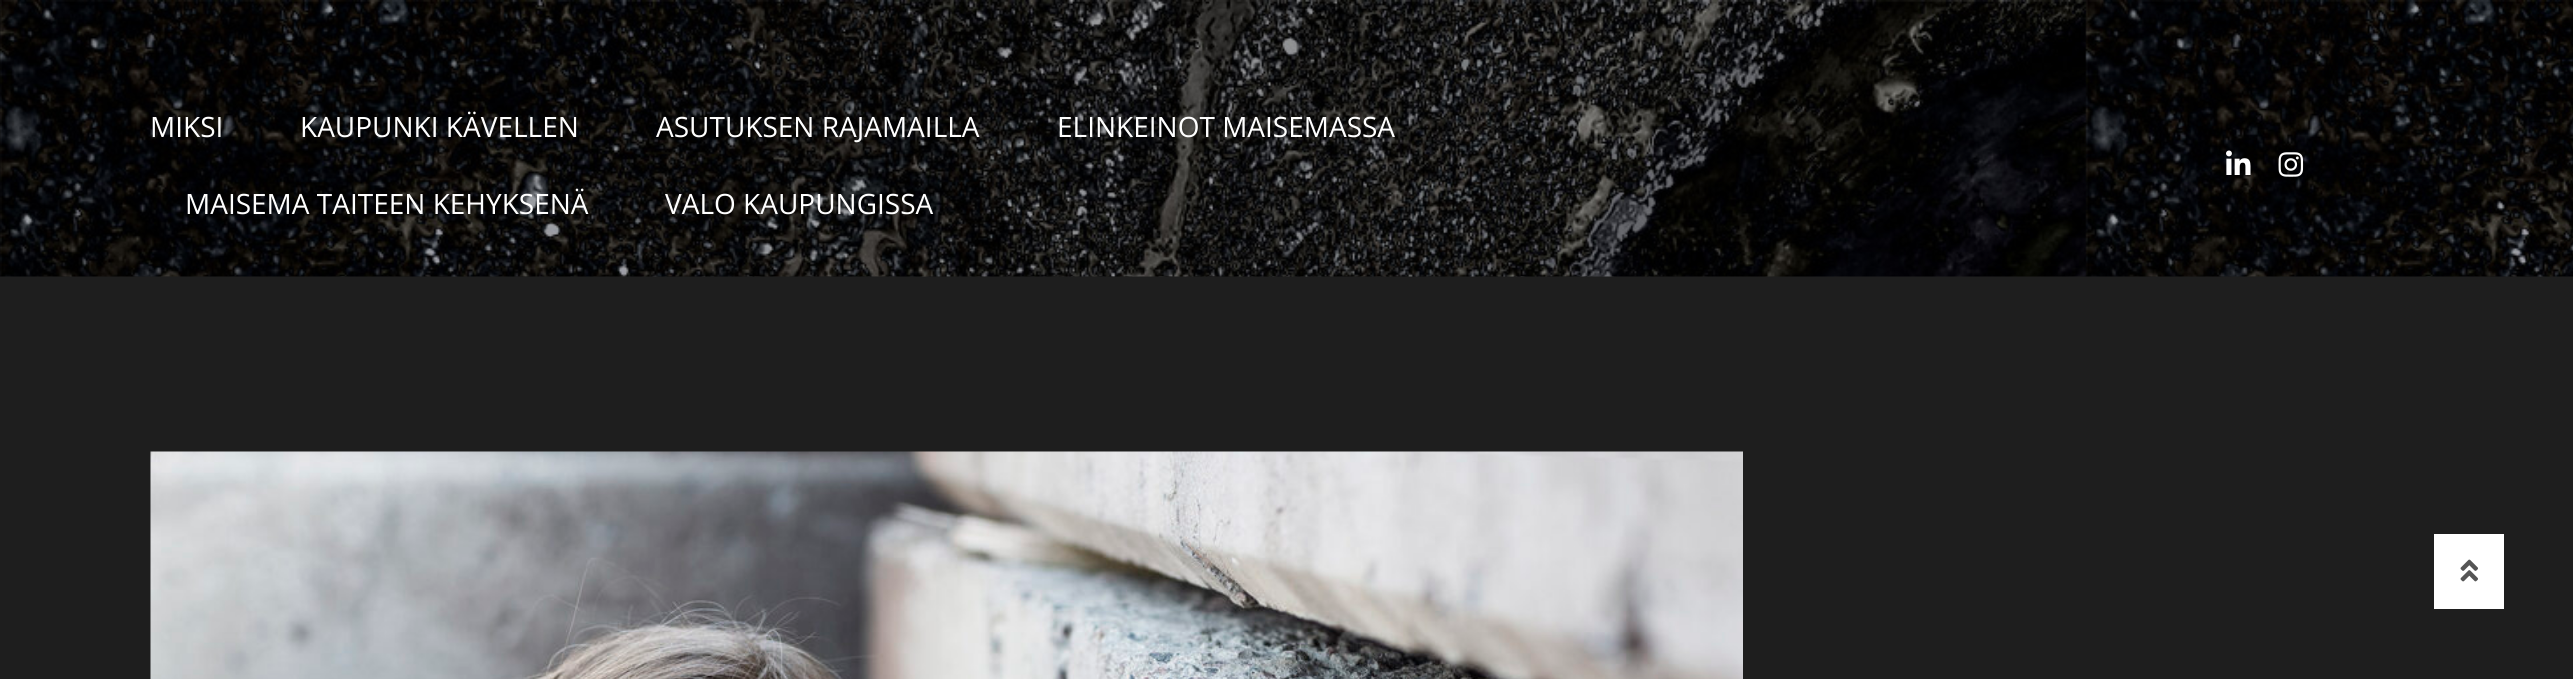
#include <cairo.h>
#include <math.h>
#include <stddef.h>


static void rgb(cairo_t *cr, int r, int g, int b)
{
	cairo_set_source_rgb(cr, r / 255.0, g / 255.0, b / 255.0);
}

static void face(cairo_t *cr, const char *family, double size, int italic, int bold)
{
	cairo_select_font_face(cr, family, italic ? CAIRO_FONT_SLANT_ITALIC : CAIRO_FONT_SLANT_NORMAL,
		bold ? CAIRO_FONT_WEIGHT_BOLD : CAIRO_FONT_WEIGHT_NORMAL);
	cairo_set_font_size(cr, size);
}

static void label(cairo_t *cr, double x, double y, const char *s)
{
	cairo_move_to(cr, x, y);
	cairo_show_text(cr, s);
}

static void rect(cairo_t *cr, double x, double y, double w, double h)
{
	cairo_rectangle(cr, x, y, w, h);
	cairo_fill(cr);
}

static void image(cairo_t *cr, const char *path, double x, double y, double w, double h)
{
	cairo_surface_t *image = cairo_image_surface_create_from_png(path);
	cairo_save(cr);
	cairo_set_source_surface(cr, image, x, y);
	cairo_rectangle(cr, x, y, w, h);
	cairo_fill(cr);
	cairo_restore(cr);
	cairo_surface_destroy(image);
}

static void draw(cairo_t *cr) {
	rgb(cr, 30, 30, 30);
	cairo_paint(cr);
	image(cr, "image0.png", 0, 0, 2573, 277);
	face(cr, "Open Sans", 28, 0, 0);
	rgb(cr, 255, 255, 255);
	label(cr, 150, 137, "MIKSI");
	label(cr, 300, 137, "KAUPUNKI KÄVELLEN");
	label(cr, 656, 137, "ASUTUKSEN RAJAMAILLA");
	label(cr, 1057, 137, "ELINKEINOT MAISEMASSA");
	label(cr, 185, 214, "MAISEMA TAITEEN KEHYKSENÄ");
	label(cr, 665, 214, "VALO KAUPUNGISSA");
	image(cr, "image1.png", 2226, 150, 25, 25);
	image(cr, "image2.png", 2278, 152, 26, 25);
	image(cr, "image3.png", 150, 451, 1593, 228);
	rect(cr, 2434, 534, 70, 75);
	image(cr, "image4.png", 2460, 559, 18, 23);
}

int main(void) {
	cairo_surface_t *surface = cairo_image_surface_create(CAIRO_FORMAT_RGB24, 2573, 679);
	cairo_t *cr = cairo_create(surface);
	cairo_font_options_t *options = cairo_font_options_create();
	cairo_font_options_set_hint_metrics(options, CAIRO_HINT_METRICS_OFF);
	cairo_font_options_set_hint_style(options, CAIRO_HINT_STYLE_NONE);
	cairo_set_font_options(cr, options);
	cairo_set_miter_limit(cr, 4);
	draw(cr);
	cairo_surface_write_to_png(surface, "render.png");
	cairo_font_options_destroy(options);
	cairo_destroy(cr);
	cairo_surface_destroy(surface);
	return 0;
}
